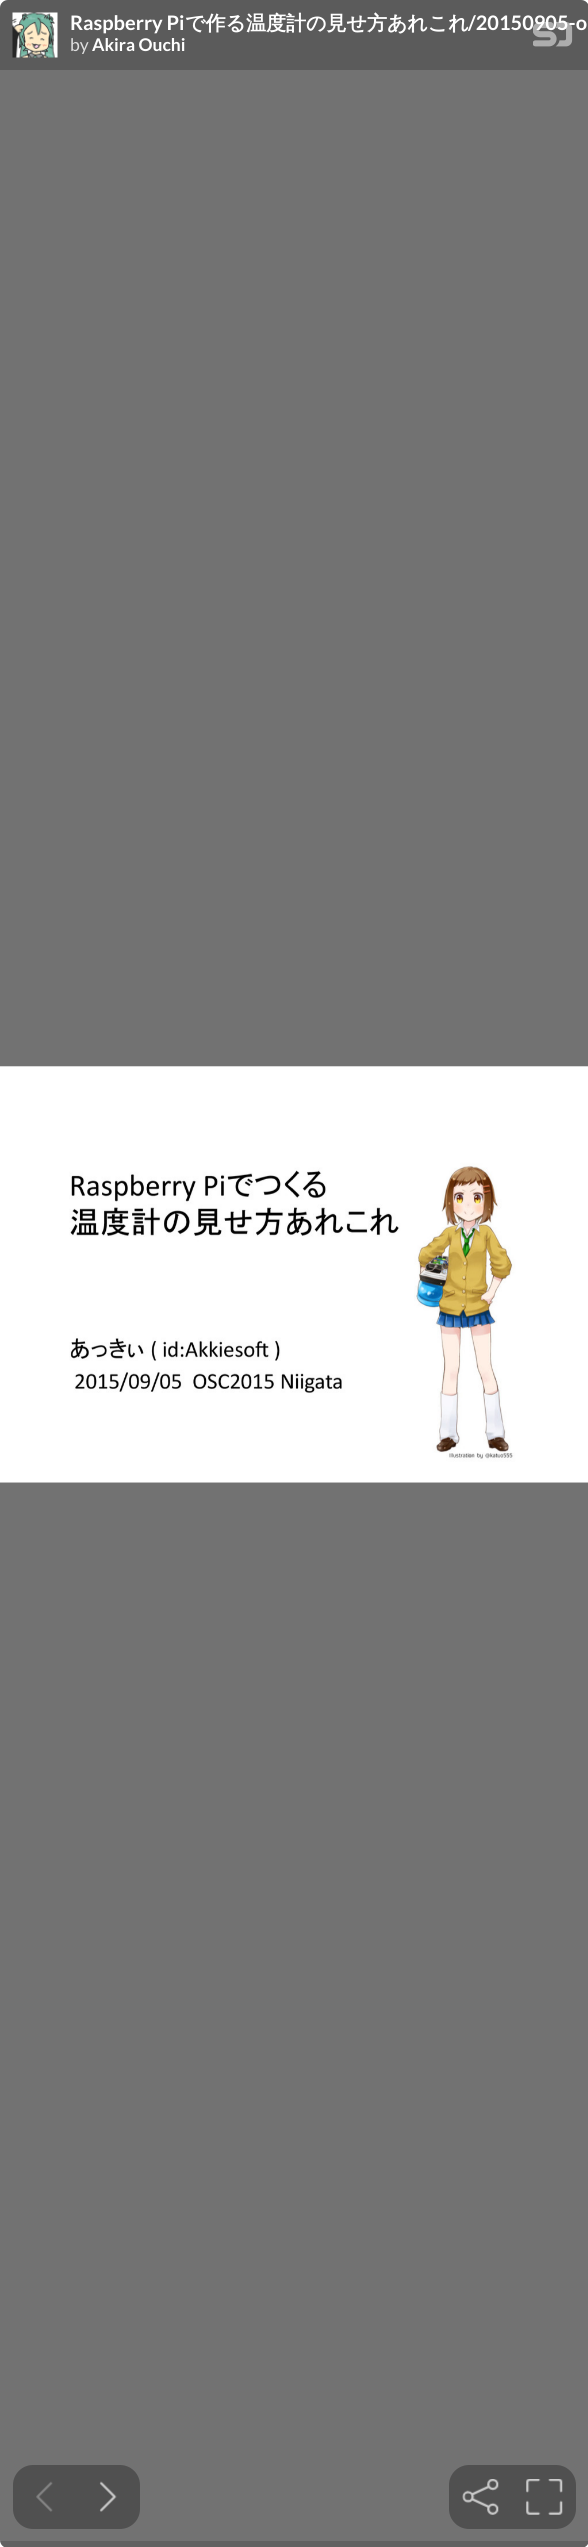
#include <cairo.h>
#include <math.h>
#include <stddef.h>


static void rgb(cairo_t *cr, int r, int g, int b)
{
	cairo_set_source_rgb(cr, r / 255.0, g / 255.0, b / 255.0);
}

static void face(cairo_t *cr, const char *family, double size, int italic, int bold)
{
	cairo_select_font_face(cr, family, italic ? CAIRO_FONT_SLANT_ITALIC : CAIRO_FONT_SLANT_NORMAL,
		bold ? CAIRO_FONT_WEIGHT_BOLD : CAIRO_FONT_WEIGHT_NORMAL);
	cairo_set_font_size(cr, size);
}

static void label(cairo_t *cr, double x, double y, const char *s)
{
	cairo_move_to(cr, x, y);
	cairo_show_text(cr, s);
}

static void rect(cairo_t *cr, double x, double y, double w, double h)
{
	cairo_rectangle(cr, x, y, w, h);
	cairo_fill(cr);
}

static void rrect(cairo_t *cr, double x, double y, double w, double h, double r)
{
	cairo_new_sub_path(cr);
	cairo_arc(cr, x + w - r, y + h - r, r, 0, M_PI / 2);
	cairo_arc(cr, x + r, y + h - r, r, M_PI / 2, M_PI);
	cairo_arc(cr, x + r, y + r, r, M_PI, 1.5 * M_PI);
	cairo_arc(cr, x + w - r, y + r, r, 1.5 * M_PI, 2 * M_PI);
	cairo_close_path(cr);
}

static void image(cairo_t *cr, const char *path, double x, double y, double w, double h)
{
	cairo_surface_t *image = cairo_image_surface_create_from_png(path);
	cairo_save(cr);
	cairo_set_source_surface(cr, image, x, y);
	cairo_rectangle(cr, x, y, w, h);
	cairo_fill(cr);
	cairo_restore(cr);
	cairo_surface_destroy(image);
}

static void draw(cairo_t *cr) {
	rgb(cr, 255, 255, 255);
	cairo_paint(cr);
	rgb(cr, 114, 114, 114);
	rrect(cr, 0, 0, 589, 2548, 8);
	cairo_fill(cr);
	image(cr, "image0.png", 0, 1066, 588, 417);
	cairo_set_source_rgba(cr, 0, 0, 0, 0.2);
	cairo_new_path(cr);
	cairo_move_to(cr, 8, 0);
	cairo_line_to(cr, 581, 0);
	cairo_curve_to(cr, 585.5, 0, 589, 3.5, 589, 8);
	cairo_line_to(cr, 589, 70);
	cairo_line_to(cr, 0, 70);
	cairo_line_to(cr, 0, 8);
	cairo_curve_to(cr, 0, 3.5, 3.5, 0, 8, 0);
	cairo_close_path(cr);
	cairo_fill(cr);
	image(cr, "image1.png", 12, 12, 46, 46);
	face(cr, "Lato", 20, 0, 1);
	rgb(cr, 255, 255, 255);
	label(cr, 70, 30, "Raspberry Pi");
	face(cr, "WenQuanYi Zen Hei", 20, 0, 1);
	label(cr, 185, 30, "で作る温度計の見せ方あれこれ");
	face(cr, "Lato", 20, 0, 1);
	label(cr, 468, 30, "/20150905-o");
	face(cr, "Lato", 17.5, 0, 0);
	rgb(cr, 222, 222, 222);
	label(cr, 70, 51, "by");
	face(cr, "Lato", 17.5, 0, 1);
	rgb(cr, 255, 255, 255);
	label(cr, 92, 51, "Akira Ouchi");
	image(cr, "image2.png", 533, 22, 40, 25);
	rgb(cr, 80, 80, 80);
	rrect(cr, 13, 2465, 127, 64, 20);
	cairo_fill(cr);
	image(cr, "image3.png", 36, 2481, 17, 31);
	image(cr, "image4.png", 99, 2481, 18, 31);
	rrect(cr, 449, 2465, 127, 64, 20);
	cairo_fill(cr);
	image(cr, "image5.png", 462, 2479, 37, 36);
	image(cr, "image6.png", 526, 2479, 37, 36);
	cairo_save(cr);
	rrect(cr, 0, 0, 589, 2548, 8);
	cairo_clip(cr);
	cairo_set_source_rgba(cr, 0, 0, 0, 0.15);
	rect(cr, 0, 2541, 588, 6);
	cairo_restore(cr);
}

int main(void) {
	cairo_surface_t *surface = cairo_image_surface_create(CAIRO_FORMAT_RGB24, 588, 2547);
	cairo_t *cr = cairo_create(surface);
	cairo_font_options_t *options = cairo_font_options_create();
	cairo_font_options_set_hint_metrics(options, CAIRO_HINT_METRICS_OFF);
	cairo_font_options_set_hint_style(options, CAIRO_HINT_STYLE_NONE);
	cairo_set_font_options(cr, options);
	cairo_set_miter_limit(cr, 4);
	draw(cr);
	cairo_surface_write_to_png(surface, "render.png");
	cairo_font_options_destroy(options);
	cairo_destroy(cr);
	cairo_surface_destroy(surface);
	return 0;
}
